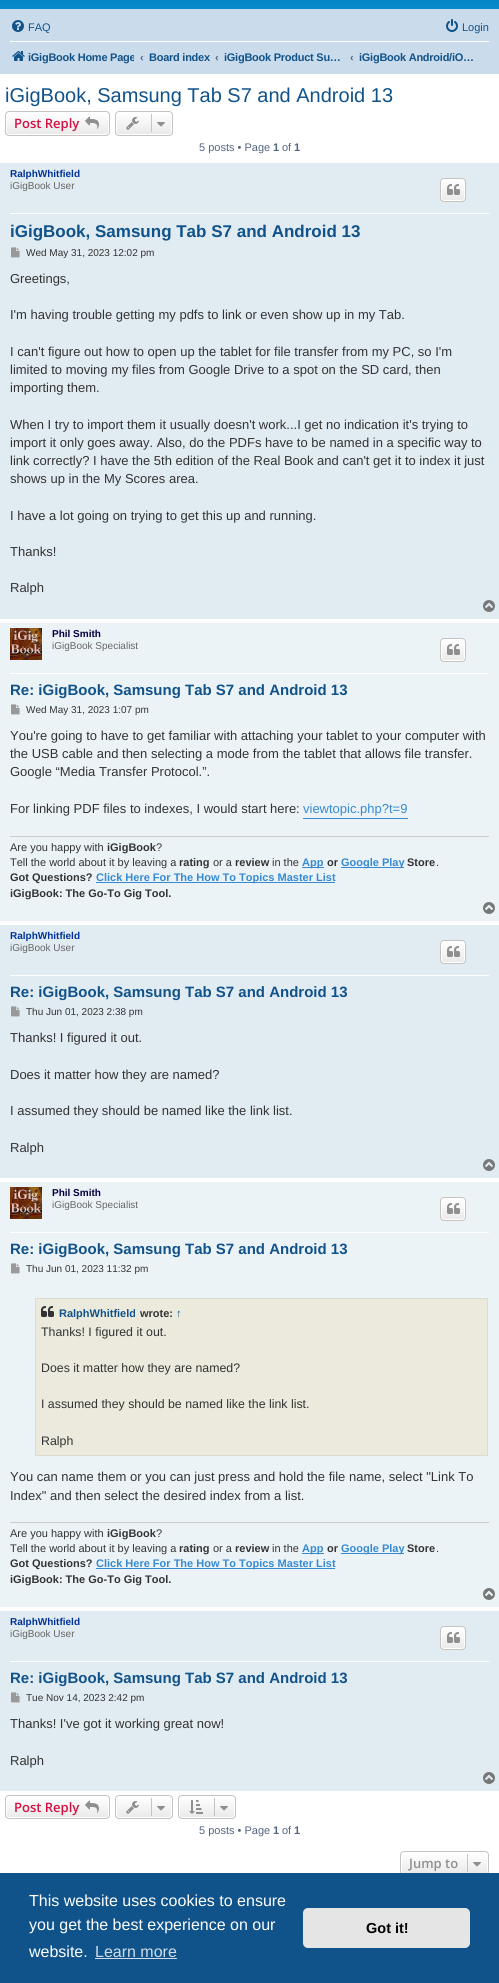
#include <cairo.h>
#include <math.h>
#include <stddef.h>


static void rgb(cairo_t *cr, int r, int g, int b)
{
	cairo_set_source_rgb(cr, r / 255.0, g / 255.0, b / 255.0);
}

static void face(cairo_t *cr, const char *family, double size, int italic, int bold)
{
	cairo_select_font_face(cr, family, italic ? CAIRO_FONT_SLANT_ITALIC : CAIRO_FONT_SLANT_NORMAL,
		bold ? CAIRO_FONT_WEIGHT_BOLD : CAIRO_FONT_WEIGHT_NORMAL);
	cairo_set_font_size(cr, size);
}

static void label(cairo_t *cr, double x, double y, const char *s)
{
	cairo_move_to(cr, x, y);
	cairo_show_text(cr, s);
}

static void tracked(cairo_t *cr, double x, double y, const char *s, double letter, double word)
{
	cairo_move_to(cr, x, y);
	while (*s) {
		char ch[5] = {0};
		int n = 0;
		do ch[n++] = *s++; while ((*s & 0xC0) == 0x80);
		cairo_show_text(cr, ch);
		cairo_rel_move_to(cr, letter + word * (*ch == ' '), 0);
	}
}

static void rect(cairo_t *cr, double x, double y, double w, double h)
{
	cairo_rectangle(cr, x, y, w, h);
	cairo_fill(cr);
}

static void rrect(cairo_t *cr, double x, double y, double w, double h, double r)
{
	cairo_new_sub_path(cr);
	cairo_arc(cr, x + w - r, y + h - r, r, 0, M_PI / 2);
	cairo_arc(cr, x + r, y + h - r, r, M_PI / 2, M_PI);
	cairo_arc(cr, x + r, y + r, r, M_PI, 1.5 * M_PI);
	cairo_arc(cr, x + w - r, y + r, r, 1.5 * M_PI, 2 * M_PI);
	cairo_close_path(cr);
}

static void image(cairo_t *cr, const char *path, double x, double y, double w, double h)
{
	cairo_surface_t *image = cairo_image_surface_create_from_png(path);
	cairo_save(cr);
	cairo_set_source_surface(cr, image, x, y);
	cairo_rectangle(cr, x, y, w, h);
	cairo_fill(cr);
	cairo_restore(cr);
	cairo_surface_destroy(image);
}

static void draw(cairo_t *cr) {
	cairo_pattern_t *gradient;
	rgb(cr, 255, 255, 255);
	cairo_paint(cr);
	gradient = cairo_pattern_create_linear(250, -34, 250, 58);
	cairo_pattern_add_color_stop_rgba(gradient, 0, 0.416, 0.808, 1, 1);
	cairo_pattern_add_color_stop_rgba(gradient, 0.02, 0, 0.463, 0.694, 1);
	cairo_pattern_add_color_stop_rgba(gradient, 1, 0.071, 0.639, 0.922, 1);
	cairo_set_source(cr, gradient);
	cairo_pattern_destroy(gradient);
	rect(cr, 0, 0, 499, 9);
	rgb(cr, 202, 220, 235);
	rect(cr, 0, 9, 499, 65);
	image(cr, "image0.png", 12, 20, 12, 12);
	face(cr, "Liberation Sans", 11, 0, 0);
	rgb(cr, 16, 82, 137);
	label(cr, 28, 31, "FAQ");
	image(cr, "image1.png", 446, 19, 12, 13);
	label(cr, 462, 31, "Login");
	rgb(cr, 255, 255, 255);
	rect(cr, 10, 41, 479, 1);
	image(cr, "image2.png", 12, 51, 13, 10);
	cairo_save(cr);
	cairo_rectangle(cr, 10, 45, 124, 24);
	cairo_clip(cr);
	face(cr, "Liberation Sans", 11, 0, 1);
	rgb(cr, 16, 82, 137);
	tracked(cr, 28, 61, "iGigBook Home Page", -0.25, 0);
	cairo_restore(cr);
	face(cr, "Liberation Sans", 11, 0, 1);
	rgb(cr, 83, 100, 130);
	label(cr, 140, 61, "‹");
	rgb(cr, 16, 82, 137);
	tracked(cr, 149, 61, "Board index", -0.25, 0);
	rgb(cr, 83, 100, 130);
	label(cr, 215, 61, "‹");
	rgb(cr, 16, 82, 137);
	tracked(cr, 224, 61, "iGigBook Product Su…", -0.25, 0);
	rgb(cr, 83, 100, 130);
	label(cr, 350, 61, "‹");
	rgb(cr, 16, 82, 137);
	tracked(cr, 359, 61, "iGigBook Android/iO…", -0.25, 0);
	face(cr, "Liberation Sans", 20, 0, 0);
	label(cr, 5, 102, "iGigBook, Samsung Tab S7 and Android 13");
	cairo_save(cr);
	rrect(cr, 5, 111, 105, 25, 4);
	cairo_clip(cr);
	gradient = cairo_pattern_create_linear(58, 112, 58, 135);
	cairo_pattern_add_color_stop_rgba(gradient, 0, 1, 1, 1, 1);
	cairo_pattern_add_color_stop_rgba(gradient, 1, 0.914, 0.914, 0.914, 1);
	cairo_set_source(cr, gradient);
	cairo_pattern_destroy(gradient);
	rect(cr, 5, 112, 105, 23);
	cairo_restore(cr);
	rrect(cr, 6.5, 112.5, 102, 22, 2.5);
	rgb(cr, 255, 255, 255);
	cairo_set_line_width(cr, 1);
	cairo_stroke(cr);
	rrect(cr, 5.5, 111.5, 104, 24, 3.5);
	rgb(cr, 199, 195, 191);
	cairo_stroke(cr);
	face(cr, "Open Sans SemiBold", 13, 0, 0);
	rgb(cr, 211, 17, 65);
	label(cr, 14, 128, "Post Reply");
	image(cr, "image3.png", 85, 116, 14, 13);
	cairo_save(cr);
	rrect(cr, 115, 111, 58, 25, 4);
	cairo_clip(cr);
	gradient = cairo_pattern_create_linear(144, 112, 144, 135);
	cairo_pattern_add_color_stop_rgba(gradient, 0, 1, 1, 1, 1);
	cairo_pattern_add_color_stop_rgba(gradient, 1, 0.914, 0.914, 0.914, 1);
	cairo_set_source(cr, gradient);
	cairo_pattern_destroy(gradient);
	rect(cr, 115, 112, 58, 23);
	cairo_restore(cr);
	rrect(cr, 116.5, 112.5, 55, 22, 2.5);
	rgb(cr, 255, 255, 255);
	cairo_stroke(cr);
	rrect(cr, 115.5, 111.5, 57, 24, 3.5);
	rgb(cr, 199, 195, 191);
	cairo_stroke(cr);
	image(cr, "image4.png", 126, 117, 13, 13);
	rect(cr, 151, 114, 1, 18);
	image(cr, "image5.png", 157, 122, 8, 5);
	face(cr, "Liberation Sans", 11, 0, 0);
	rgb(cr, 83, 100, 130);
	label(cr, 199, 151, "5 posts • Page");
	face(cr, "Liberation Sans", 11, 0, 1);
	label(cr, 273, 151, "1");
	face(cr, "Liberation Sans", 11, 0, 0);
	label(cr, 282, 151, "of");
	face(cr, "Liberation Sans", 11, 0, 1);
	label(cr, 294, 151, "1");
	rgb(cr, 225, 235, 242);
	rect(cr, 0, 163, 499, 456);
	rgb(cr, 255, 255, 255);
	rect(cr, 10, 213, 479, 1);
	face(cr, "Liberation Sans", 10, 0, 1);
	rgb(cr, 0, 51, 153);
	label(cr, 10, 177, "RalphWhitfield");
	face(cr, "Liberation Sans", 10, 0, 0);
	rgb(cr, 102, 102, 102);
	label(cr, 10, 189, "iGigBook User");
	cairo_save(cr);
	rrect(cr, 440, 178, 26, 24, 4);
	cairo_clip(cr);
	gradient = cairo_pattern_create_linear(453, 179, 453, 201);
	cairo_pattern_add_color_stop_rgba(gradient, 0, 1, 1, 1, 1);
	cairo_pattern_add_color_stop_rgba(gradient, 1, 0.914, 0.914, 0.914, 1);
	cairo_set_source(cr, gradient);
	cairo_pattern_destroy(gradient);
	rect(cr, 440, 179, 26, 22);
	cairo_restore(cr);
	rrect(cr, 441.5, 179.5, 23, 21, 2.5);
	rgb(cr, 255, 255, 255);
	cairo_stroke(cr);
	rrect(cr, 440.5, 178.5, 25, 23, 3.5);
	rgb(cr, 199, 195, 191);
	cairo_stroke(cr);
	image(cr, "image6.png", 447, 184, 13, 11);
	face(cr, "Liberation Sans", 17, 0, 1);
	rgb(cr, 16, 82, 137);
	label(cr, 10, 237, "iGigBook, Samsung Tab S7 and Android 13");
	image(cr, "image7.png", 11, 247, 9, 11);
	face(cr, "Liberation Sans", 10, 0, 0);
	rgb(cr, 51, 51, 51);
	label(cr, 26, 256, "Wed May 31, 2023 12:02 pm");
	face(cr, "Liberation Sans", 13, 0, 0);
	label(cr, 10, 283, "Greetings,");
	label(cr, 10, 319, "I'm having trouble getting my pdfs to link or even show up in my Tab.");
	label(cr, 10, 356, "I can't figure out how to open up the tablet for file transfer from my PC, so I'm");
	label(cr, 10, 374, "limited to moving my files from Google Drive to a spot on the SD card, then");
	label(cr, 10, 392, "importing them.");
	label(cr, 10, 429, "When I try to import them it usually doesn't work...I get no indication it's trying to");
	label(cr, 10, 447, "import it only goes away. Also, do the PDFs have to be named in a specific way to");
	label(cr, 10, 465, "link correctly? I have the 5th edition of the Real Book and can't get it to index it just");
	label(cr, 10, 483, "shows up in the My Scores area.");
	label(cr, 10, 520, "I have a lot going on trying to get this up and running.");
	label(cr, 10, 556, "Thanks!");
	label(cr, 10, 592, "Ralph");
	image(cr, "image8.png", 483, 600, 12, 12);
	rgb(cr, 236, 243, 247);
	rect(cr, 0, 623, 499, 298);
	rgb(cr, 255, 255, 255);
	rect(cr, 10, 673, 479, 1);
	image(cr, "image9.png", 10, 628, 32, 32);
	face(cr, "Liberation Sans", 10, 0, 1);
	rgb(cr, 0, 0, 64);
	label(cr, 52, 637, "Phil Smith");
	face(cr, "Liberation Sans", 10, 0, 0);
	rgb(cr, 102, 102, 102);
	label(cr, 52, 649, "iGigBook Specialist");
	cairo_save(cr);
	rrect(cr, 440, 638, 26, 24, 4);
	cairo_clip(cr);
	gradient = cairo_pattern_create_linear(453, 639, 453, 661);
	cairo_pattern_add_color_stop_rgba(gradient, 0, 1, 1, 1, 1);
	cairo_pattern_add_color_stop_rgba(gradient, 1, 0.914, 0.914, 0.914, 1);
	cairo_set_source(cr, gradient);
	cairo_pattern_destroy(gradient);
	rect(cr, 440, 639, 26, 22);
	cairo_restore(cr);
	rrect(cr, 441.5, 639.5, 23, 21, 2.5);
	rgb(cr, 255, 255, 255);
	cairo_stroke(cr);
	rrect(cr, 440.5, 638.5, 25, 23, 3.5);
	rgb(cr, 199, 195, 191);
	cairo_stroke(cr);
	image(cr, "image6.png", 447, 644, 13, 11);
	face(cr, "Liberation Sans", 15, 0, 1);
	rgb(cr, 16, 82, 137);
	label(cr, 10, 695, "Re: iGigBook, Samsung Tab S7 and Android 13");
	image(cr, "image10.png", 11, 704, 9, 11);
	face(cr, "Liberation Sans", 10, 0, 0);
	rgb(cr, 51, 51, 51);
	label(cr, 26, 713, "Wed May 31, 2023 1:07 pm");
	face(cr, "Liberation Sans", 13, 0, 0);
	label(cr, 10, 740, "You're going to have to get familiar with attaching your tablet to your computer with");
	label(cr, 10, 758, "the USB cable and then selecting a mode from the tablet that allows file transfer.");
	label(cr, 10, 776, "Google “Media Transfer Protocol.”.");
	label(cr, 10, 813, "For linking PDF files to indexes, I would start here:");
	rgb(cr, 54, 138, 210);
	rect(cr, 303, 818, 105, 1);
	label(cr, 303, 813, "viewtopic.php?t=9");
	rgb(cr, 204, 204, 204);
	rect(cr, 10, 836, 479, 1);
	face(cr, "Liberation Sans", 11, 0, 0);
	rgb(cr, 51, 51, 51);
	label(cr, 10, 851, "Are you happy with");
	face(cr, "Liberation Sans", 11, 0, 1);
	label(cr, 107, 851, "iGigBook");
	face(cr, "Liberation Sans", 11, 0, 0);
	label(cr, 156, 851, "?");
	label(cr, 10, 866, "Tell the world about it by leaving a");
	face(cr, "Liberation Sans", 11, 0, 1);
	label(cr, 179, 866, "rating");
	face(cr, "Liberation Sans", 11, 0, 0);
	label(cr, 213, 866, "or a");
	face(cr, "Liberation Sans", 11, 0, 1);
	label(cr, 235, 866, "review");
	face(cr, "Liberation Sans", 11, 0, 0);
	label(cr, 272, 866, "in the");
	rgb(cr, 54, 138, 210);
	rect(cr, 302, 867, 22, 1);
	face(cr, "Liberation Sans", 11, 0, 1);
	label(cr, 302, 866, "App");
	rgb(cr, 51, 51, 51);
	label(cr, 327, 866, "or");
	rgb(cr, 54, 138, 210);
	rect(cr, 341, 867, 63, 1);
	label(cr, 341, 866, "Google Play");
	rgb(cr, 51, 51, 51);
	label(cr, 407, 866, "Store");
	face(cr, "Liberation Sans", 11, 0, 0);
	label(cr, 436, 866, ".");
	face(cr, "Liberation Sans", 11, 0, 1);
	label(cr, 10, 881, "Got Questions?");
	rgb(cr, 54, 138, 210);
	rect(cr, 96, 882, 239, 1);
	label(cr, 96, 881, "Click Here For The How To Topics Master List");
	rgb(cr, 51, 51, 51);
	label(cr, 10, 897, "iGigBook: The Go-To Gig Tool.");
	image(cr, "image11.png", 483, 902, 12, 12);
	rgb(cr, 225, 235, 242);
	rect(cr, 0, 925, 499, 253);
	rgb(cr, 255, 255, 255);
	rect(cr, 10, 975, 479, 1);
	face(cr, "Liberation Sans", 10, 0, 1);
	rgb(cr, 0, 51, 153);
	label(cr, 10, 939, "RalphWhitfield");
	face(cr, "Liberation Sans", 10, 0, 0);
	rgb(cr, 102, 102, 102);
	label(cr, 10, 951, "iGigBook User");
	cairo_save(cr);
	rrect(cr, 440, 940, 26, 24, 4);
	cairo_clip(cr);
	gradient = cairo_pattern_create_linear(453, 941, 453, 963);
	cairo_pattern_add_color_stop_rgba(gradient, 0, 1, 1, 1, 1);
	cairo_pattern_add_color_stop_rgba(gradient, 1, 0.914, 0.914, 0.914, 1);
	cairo_set_source(cr, gradient);
	cairo_pattern_destroy(gradient);
	rect(cr, 440, 941, 26, 22);
	cairo_restore(cr);
	rrect(cr, 441.5, 941.5, 23, 21, 2.5);
	rgb(cr, 255, 255, 255);
	cairo_stroke(cr);
	rrect(cr, 440.5, 940.5, 25, 23, 3.5);
	rgb(cr, 199, 195, 191);
	cairo_stroke(cr);
	image(cr, "image6.png", 447, 946, 13, 11);
	face(cr, "Liberation Sans", 15, 0, 1);
	rgb(cr, 16, 82, 137);
	label(cr, 10, 997, "Re: iGigBook, Samsung Tab S7 and Android 13");
	image(cr, "image7.png", 11, 1006, 9, 11);
	face(cr, "Liberation Sans", 10, 0, 0);
	rgb(cr, 51, 51, 51);
	label(cr, 26, 1015, "Thu Jun 01, 2023 2:38 pm");
	face(cr, "Liberation Sans", 13, 0, 0);
	label(cr, 10, 1042, "Thanks! I figured it out.");
	label(cr, 10, 1079, "Does it matter how they are named?");
	label(cr, 10, 1115, "I assumed they should be named like the link list.");
	label(cr, 10, 1152, "Ralph");
	image(cr, "image8.png", 483, 1159, 12, 12);
	rgb(cr, 236, 243, 247);
	rect(cr, 0, 1182, 499, 425);
	rgb(cr, 255, 255, 255);
	rect(cr, 10, 1232, 479, 1);
	image(cr, "image9.png", 10, 1187, 32, 32);
	face(cr, "Liberation Sans", 10, 0, 1);
	rgb(cr, 0, 0, 64);
	label(cr, 52, 1196, "Phil Smith");
	face(cr, "Liberation Sans", 10, 0, 0);
	rgb(cr, 102, 102, 102);
	label(cr, 52, 1208, "iGigBook Specialist");
	cairo_save(cr);
	rrect(cr, 440, 1197, 26, 24, 4);
	cairo_clip(cr);
	gradient = cairo_pattern_create_linear(453, 1198, 453, 1220);
	cairo_pattern_add_color_stop_rgba(gradient, 0, 1, 1, 1, 1);
	cairo_pattern_add_color_stop_rgba(gradient, 1, 0.914, 0.914, 0.914, 1);
	cairo_set_source(cr, gradient);
	cairo_pattern_destroy(gradient);
	rect(cr, 440, 1198, 26, 22);
	cairo_restore(cr);
	rrect(cr, 441.5, 1198.5, 23, 21, 2.5);
	rgb(cr, 255, 255, 255);
	cairo_stroke(cr);
	rrect(cr, 440.5, 1197.5, 25, 23, 3.5);
	rgb(cr, 199, 195, 191);
	cairo_stroke(cr);
	image(cr, "image6.png", 447, 1203, 13, 11);
	face(cr, "Liberation Sans", 15, 0, 1);
	rgb(cr, 16, 82, 137);
	label(cr, 10, 1254, "Re: iGigBook, Samsung Tab S7 and Android 13");
	image(cr, "image10.png", 11, 1263, 9, 11);
	face(cr, "Liberation Sans", 10, 0, 0);
	rgb(cr, 51, 51, 51);
	label(cr, 26, 1272, "Thu Jun 01, 2023 11:32 pm");
	rgb(cr, 235, 234, 221);
	cairo_rectangle(cr, 35.5, 1298.5, 452, 157);
	cairo_fill_preserve(cr);
	rgb(cr, 219, 219, 206);
	cairo_stroke(cr);
	image(cr, "image12.png", 41, 1306, 13, 11);
	face(cr, "Liberation Sans", 11, 0, 1);
	rgb(cr, 16, 82, 137);
	label(cr, 59, 1317, "RalphWhitfield");
	rgb(cr, 51, 51, 51);
	label(cr, 140, 1317, "wrote:");
	rgb(cr, 16, 82, 137);
	label(cr, 176, 1317, "↑");
	face(cr, "Liberation Sans", 12.35, 0, 0);
	rgb(cr, 51, 51, 51);
	label(cr, 41, 1336, "Thanks! I figured it out.");
	label(cr, 41, 1372, "Does it matter how they are named?");
	label(cr, 41, 1408, "I assumed they should be named like the link list.");
	label(cr, 41, 1445, "Ralph");
	face(cr, "Liberation Sans", 13, 0, 0);
	label(cr, 10, 1481, "You can name them or you can just press and hold the file name, select \"Link To");
	label(cr, 10, 1500, "Index\" and then select the desired index from a list.");
	rgb(cr, 204, 204, 204);
	rect(cr, 10, 1522, 479, 1);
	face(cr, "Liberation Sans", 11, 0, 0);
	rgb(cr, 51, 51, 51);
	label(cr, 10, 1537, "Are you happy with");
	face(cr, "Liberation Sans", 11, 0, 1);
	label(cr, 107, 1537, "iGigBook");
	face(cr, "Liberation Sans", 11, 0, 0);
	label(cr, 156, 1537, "?");
	label(cr, 10, 1552, "Tell the world about it by leaving a");
	face(cr, "Liberation Sans", 11, 0, 1);
	label(cr, 179, 1552, "rating");
	face(cr, "Liberation Sans", 11, 0, 0);
	label(cr, 213, 1552, "or a");
	face(cr, "Liberation Sans", 11, 0, 1);
	label(cr, 235, 1552, "review");
	face(cr, "Liberation Sans", 11, 0, 0);
	label(cr, 272, 1552, "in the");
	rgb(cr, 54, 138, 210);
	rect(cr, 302, 1553, 22, 1);
	face(cr, "Liberation Sans", 11, 0, 1);
	label(cr, 302, 1552, "App");
	rgb(cr, 51, 51, 51);
	label(cr, 327, 1552, "or");
	rgb(cr, 54, 138, 210);
	rect(cr, 341, 1553, 63, 1);
	label(cr, 341, 1552, "Google Play");
	rgb(cr, 51, 51, 51);
	label(cr, 407, 1552, "Store");
	face(cr, "Liberation Sans", 11, 0, 0);
	label(cr, 436, 1552, ".");
	face(cr, "Liberation Sans", 11, 0, 1);
	label(cr, 10, 1567, "Got Questions?");
	rgb(cr, 54, 138, 210);
	rect(cr, 96, 1568, 239, 1);
	label(cr, 96, 1567, "Click Here For The How To Topics Master List");
	rgb(cr, 51, 51, 51);
	label(cr, 10, 1583, "iGigBook: The Go-To Gig Tool.");
	image(cr, "image11.png", 483, 1588, 12, 12);
	rgb(cr, 225, 235, 242);
	rect(cr, 0, 1611, 499, 180);
	rgb(cr, 255, 255, 255);
	rect(cr, 10, 1661, 479, 1);
	face(cr, "Liberation Sans", 10, 0, 1);
	rgb(cr, 0, 51, 153);
	label(cr, 10, 1625, "RalphWhitfield");
	face(cr, "Liberation Sans", 10, 0, 0);
	rgb(cr, 102, 102, 102);
	label(cr, 10, 1637, "iGigBook User");
	cairo_save(cr);
	rrect(cr, 440, 1626, 26, 24, 4);
	cairo_clip(cr);
	gradient = cairo_pattern_create_linear(453, 1627, 453, 1649);
	cairo_pattern_add_color_stop_rgba(gradient, 0, 1, 1, 1, 1);
	cairo_pattern_add_color_stop_rgba(gradient, 1, 0.914, 0.914, 0.914, 1);
	cairo_set_source(cr, gradient);
	cairo_pattern_destroy(gradient);
	rect(cr, 440, 1627, 26, 22);
	cairo_restore(cr);
	rrect(cr, 441.5, 1627.5, 23, 21, 2.5);
	rgb(cr, 255, 255, 255);
	cairo_stroke(cr);
	rrect(cr, 440.5, 1626.5, 25, 23, 3.5);
	rgb(cr, 199, 195, 191);
	cairo_stroke(cr);
	image(cr, "image6.png", 447, 1632, 13, 11);
	face(cr, "Liberation Sans", 15, 0, 1);
	rgb(cr, 16, 82, 137);
	label(cr, 10, 1683, "Re: iGigBook, Samsung Tab S7 and Android 13");
	image(cr, "image7.png", 11, 1692, 9, 11);
	face(cr, "Liberation Sans", 10, 0, 0);
	rgb(cr, 51, 51, 51);
	label(cr, 26, 1701, "Tue Nov 14, 2023 2:42 pm");
	face(cr, "Liberation Sans", 13, 0, 0);
	label(cr, 10, 1728, "Thanks! I've got it working great now!");
	label(cr, 10, 1765, "Ralph");
	image(cr, "image8.png", 483, 1772, 12, 12);
	cairo_save(cr);
	rrect(cr, 5, 1795, 105, 24, 4);
	cairo_clip(cr);
	gradient = cairo_pattern_create_linear(58, 1796, 58, 1818);
	cairo_pattern_add_color_stop_rgba(gradient, 0, 1, 1, 1, 1);
	cairo_pattern_add_color_stop_rgba(gradient, 1, 0.914, 0.914, 0.914, 1);
	cairo_set_source(cr, gradient);
	cairo_pattern_destroy(gradient);
	rect(cr, 5, 1796, 105, 22);
	cairo_restore(cr);
	rrect(cr, 6.5, 1796.5, 102, 21, 2.5);
	rgb(cr, 255, 255, 255);
	cairo_stroke(cr);
	rrect(cr, 5.5, 1795.5, 104, 23, 3.5);
	rgb(cr, 199, 195, 191);
	cairo_stroke(cr);
	face(cr, "Open Sans SemiBold", 13, 0, 0);
	rgb(cr, 211, 17, 65);
	label(cr, 14, 1812, "Post Reply");
	image(cr, "image3.png", 85, 1800, 14, 13);
	cairo_save(cr);
	rrect(cr, 115, 1795, 58, 24, 4);
	cairo_clip(cr);
	gradient = cairo_pattern_create_linear(144, 1796, 144, 1818);
	cairo_pattern_add_color_stop_rgba(gradient, 0, 1, 1, 1, 1);
	cairo_pattern_add_color_stop_rgba(gradient, 1, 0.914, 0.914, 0.914, 1);
	cairo_set_source(cr, gradient);
	cairo_pattern_destroy(gradient);
	rect(cr, 115, 1796, 58, 22);
	cairo_restore(cr);
	rrect(cr, 116.5, 1796.5, 55, 21, 2.5);
	rgb(cr, 255, 255, 255);
	cairo_stroke(cr);
	rrect(cr, 115.5, 1795.5, 57, 23, 3.5);
	rgb(cr, 199, 195, 191);
	cairo_stroke(cr);
	image(cr, "image4.png", 126, 1801, 13, 13);
	rect(cr, 151, 1798, 1, 18);
	image(cr, "image5.png", 157, 1806, 8, 5);
	cairo_save(cr);
	rrect(cr, 178, 1795, 58, 24, 4);
	cairo_clip(cr);
	gradient = cairo_pattern_create_linear(207, 1796, 207, 1818);
	cairo_pattern_add_color_stop_rgba(gradient, 0, 1, 1, 1, 1);
	cairo_pattern_add_color_stop_rgba(gradient, 1, 0.914, 0.914, 0.914, 1);
	cairo_set_source(cr, gradient);
	cairo_pattern_destroy(gradient);
	rect(cr, 178, 1796, 58, 22);
	cairo_restore(cr);
	rrect(cr, 179.5, 1796.5, 55, 21, 2.5);
	rgb(cr, 255, 255, 255);
	cairo_stroke(cr);
	rrect(cr, 178.5, 1795.5, 57, 23, 3.5);
	rgb(cr, 199, 195, 191);
	cairo_stroke(cr);
	image(cr, "image13.png", 189, 1800, 14, 14);
	rect(cr, 214, 1798, 1, 18);
	image(cr, "image5.png", 220, 1806, 8, 5);
	face(cr, "Liberation Sans", 11, 0, 0);
	rgb(cr, 83, 100, 130);
	label(cr, 199, 1834, "5 posts • Page");
	face(cr, "Liberation Sans", 11, 0, 1);
	label(cr, 273, 1834, "1");
	face(cr, "Liberation Sans", 11, 0, 0);
	label(cr, 282, 1834, "of");
	face(cr, "Liberation Sans", 11, 0, 1);
	label(cr, 294, 1834, "1");
	cairo_save(cr);
	rrect(cr, 400, 1851, 89, 24, 4);
	cairo_clip(cr);
	gradient = cairo_pattern_create_linear(445, 1852, 445, 1874);
	cairo_pattern_add_color_stop_rgba(gradient, 0, 1, 1, 1, 1);
	cairo_pattern_add_color_stop_rgba(gradient, 1, 0.914, 0.914, 0.914, 1);
	cairo_set_source(cr, gradient);
	cairo_pattern_destroy(gradient);
	rect(cr, 400, 1852, 89, 21);
	cairo_restore(cr);
	rrect(cr, 401.5, 1852.5, 86, 21, 2.5);
	rgb(cr, 255, 255, 255);
	cairo_stroke(cr);
	rrect(cr, 400.5, 1851.5, 88, 23, 3.5);
	rgb(cr, 199, 195, 191);
	cairo_stroke(cr);
	face(cr, "Open Sans SemiBold", 13, 0, 0);
	rgb(cr, 143, 143, 143);
	label(cr, 409, 1868, "Jump to");
	rgb(cr, 199, 195, 191);
	rect(cr, 467, 1854, 1, 18);
	image(cr, "image5.png", 473, 1862, 8, 5);
	rgb(cr, 15, 83, 138);
	rect(cr, 0, 1873, 499, 110);
	face(cr, "Liberation Sans", 16, 0, 0);
	rgb(cr, 255, 255, 255);
	label(cr, 29, 1906, "This website uses cookies to ensure");
	label(cr, 29, 1930, "you get the best experience on our");
	label(cr, 29, 1957, "website.");
	rgb(cr, 207, 221, 232);
	label(cr, 95, 1957, "Learn more");
	rect(cr, 95, 1958, 82, 1);
	rgb(cr, 229, 229, 229);
	rrect(cr, 303, 1908, 167, 40, 5);
	cairo_fill(cr);
	face(cr, "Liberation Sans", 14.5, 0, 1);
	rgb(cr, 0, 0, 0);
	label(cr, 366, 1933, "Got it!");
}

int main(void) {
	cairo_surface_t *surface = cairo_image_surface_create(CAIRO_FORMAT_RGB24, 499, 1983);
	cairo_t *cr = cairo_create(surface);
	cairo_font_options_t *options = cairo_font_options_create();
	cairo_font_options_set_hint_metrics(options, CAIRO_HINT_METRICS_OFF);
	cairo_font_options_set_hint_style(options, CAIRO_HINT_STYLE_NONE);
	cairo_set_font_options(cr, options);
	cairo_set_miter_limit(cr, 4);
	draw(cr);
	cairo_surface_write_to_png(surface, "render.png");
	cairo_font_options_destroy(options);
	cairo_destroy(cr);
	cairo_surface_destroy(surface);
	return 0;
}
